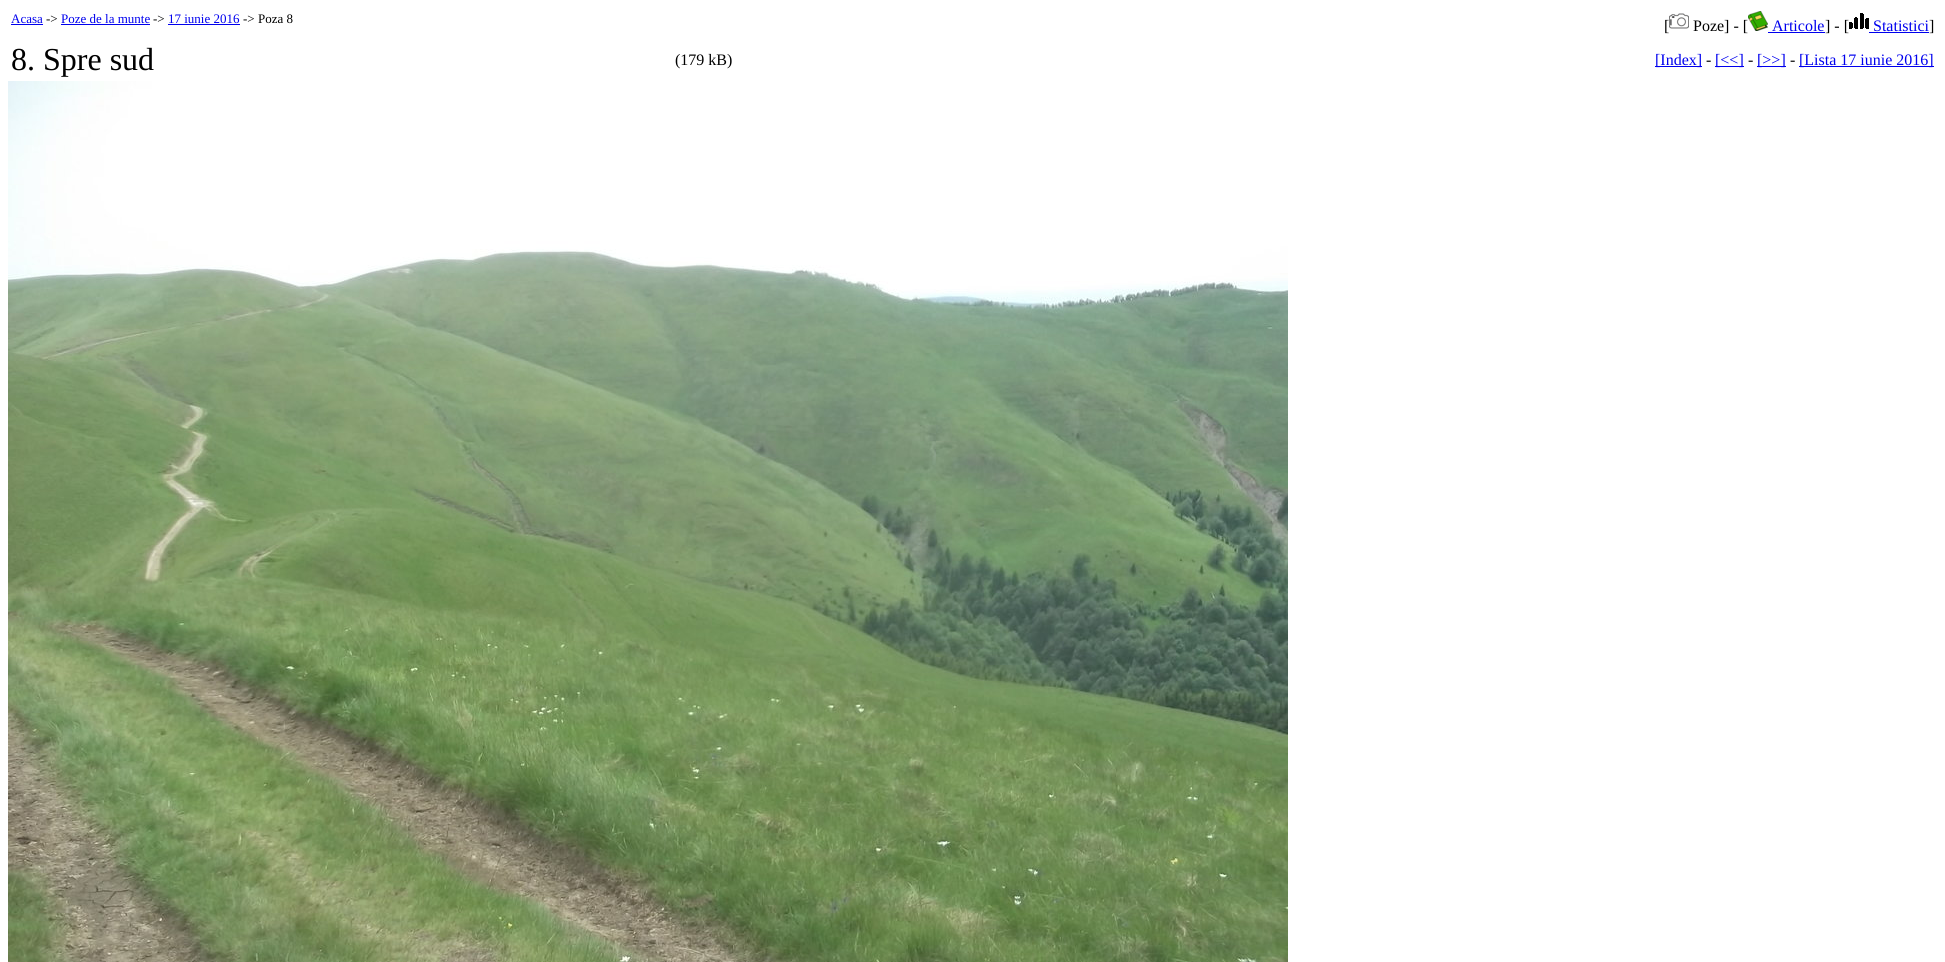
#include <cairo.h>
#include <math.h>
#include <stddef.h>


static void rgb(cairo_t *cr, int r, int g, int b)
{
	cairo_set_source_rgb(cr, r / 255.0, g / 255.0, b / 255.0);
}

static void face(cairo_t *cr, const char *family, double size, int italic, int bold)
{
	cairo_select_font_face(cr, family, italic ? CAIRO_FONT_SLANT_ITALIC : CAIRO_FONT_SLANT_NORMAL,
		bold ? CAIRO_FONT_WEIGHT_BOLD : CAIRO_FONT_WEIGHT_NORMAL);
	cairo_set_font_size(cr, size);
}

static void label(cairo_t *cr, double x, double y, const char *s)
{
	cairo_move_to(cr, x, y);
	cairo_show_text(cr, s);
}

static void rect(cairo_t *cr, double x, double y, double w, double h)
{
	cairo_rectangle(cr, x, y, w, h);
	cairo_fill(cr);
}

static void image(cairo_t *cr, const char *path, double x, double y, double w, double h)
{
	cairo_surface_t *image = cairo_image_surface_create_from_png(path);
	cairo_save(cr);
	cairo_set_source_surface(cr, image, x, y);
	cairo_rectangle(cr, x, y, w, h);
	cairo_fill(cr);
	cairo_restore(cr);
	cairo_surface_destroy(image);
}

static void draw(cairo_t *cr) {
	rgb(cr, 255, 255, 255);
	cairo_paint(cr);
	face(cr, "Liberation Serif", 13, 0, 0);
	rgb(cr, 0, 0, 238);
	label(cr, 11, 23, "Acasa");
	rect(cr, 11, 24, 32, 1);
	rgb(cr, 0, 0, 0);
	label(cr, 46, 23, "->");
	rgb(cr, 0, 0, 238);
	label(cr, 61, 23, "Poze de la munte");
	rect(cr, 61, 24, 89, 1);
	rgb(cr, 0, 0, 0);
	label(cr, 153, 23, "->");
	rgb(cr, 0, 0, 238);
	label(cr, 168, 23, "17 iunie 2016");
	rect(cr, 168, 24, 72, 1);
	rgb(cr, 0, 0, 0);
	label(cr, 243, 23, "-> Poza 8");
	face(cr, "Liberation Serif", 16, 0, 0);
	label(cr, 1664, 31, "[");
	image(cr, "image0.png", 1669, 13, 20, 16);
	label(cr, 1693, 31, "Poze] - [");
	image(cr, "image1.png", 1748, 11, 20, 20);
	rgb(cr, 0, 0, 238);
	label(cr, 1772, 31, "Articole");
	rect(cr, 1768, 32, 57, 1);
	rgb(cr, 0, 0, 0);
	label(cr, 1825, 31, "] - [");
	image(cr, "image2.png", 1849, 13, 20, 16);
	rgb(cr, 0, 0, 238);
	label(cr, 1873, 31, "Statistici");
	rect(cr, 1869, 32, 60, 1);
	rgb(cr, 0, 0, 0);
	label(cr, 1929, 31, "]");
	face(cr, "Liberation Serif", 32, 0, 0);
	label(cr, 11, 70, "8. Spre sud");
	face(cr, "Liberation Serif", 16, 0, 0);
	label(cr, 675, 65, "(179 kB)");
	rgb(cr, 0, 0, 238);
	rect(cr, 1655, 66, 47, 1);
	label(cr, 1655, 65, "[Index]");
	rgb(cr, 0, 0, 0);
	label(cr, 1706, 65, "-");
	rgb(cr, 0, 0, 238);
	rect(cr, 1715, 66, 29, 1);
	label(cr, 1715, 65, "[<<]");
	rgb(cr, 0, 0, 0);
	label(cr, 1748, 65, "-");
	rgb(cr, 0, 0, 238);
	rect(cr, 1757, 66, 29, 1);
	label(cr, 1757, 65, "[>>]");
	rgb(cr, 0, 0, 0);
	label(cr, 1790, 65, "-");
	rgb(cr, 0, 0, 238);
	rect(cr, 1799, 66, 135, 1);
	label(cr, 1799, 65, "[Lista 17 iunie 2016]");
	image(cr, "image3.png", 8, 81, 1280, 881);
}

int main(void) {
	cairo_surface_t *surface = cairo_image_surface_create(CAIRO_FORMAT_RGB24, 1945, 962);
	cairo_t *cr = cairo_create(surface);
	cairo_font_options_t *options = cairo_font_options_create();
	cairo_font_options_set_hint_metrics(options, CAIRO_HINT_METRICS_OFF);
	cairo_font_options_set_hint_style(options, CAIRO_HINT_STYLE_NONE);
	cairo_set_font_options(cr, options);
	cairo_set_miter_limit(cr, 4);
	draw(cr);
	cairo_surface_write_to_png(surface, "render.png");
	cairo_font_options_destroy(options);
	cairo_destroy(cr);
	cairo_surface_destroy(surface);
	return 0;
}
